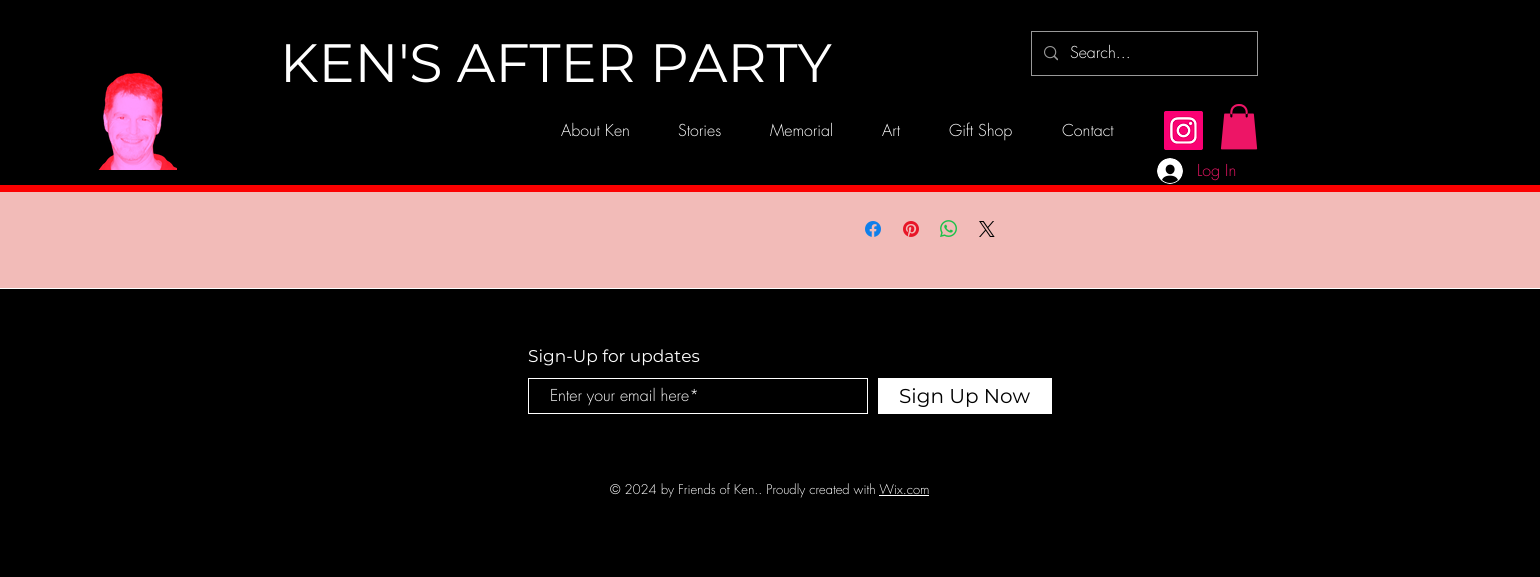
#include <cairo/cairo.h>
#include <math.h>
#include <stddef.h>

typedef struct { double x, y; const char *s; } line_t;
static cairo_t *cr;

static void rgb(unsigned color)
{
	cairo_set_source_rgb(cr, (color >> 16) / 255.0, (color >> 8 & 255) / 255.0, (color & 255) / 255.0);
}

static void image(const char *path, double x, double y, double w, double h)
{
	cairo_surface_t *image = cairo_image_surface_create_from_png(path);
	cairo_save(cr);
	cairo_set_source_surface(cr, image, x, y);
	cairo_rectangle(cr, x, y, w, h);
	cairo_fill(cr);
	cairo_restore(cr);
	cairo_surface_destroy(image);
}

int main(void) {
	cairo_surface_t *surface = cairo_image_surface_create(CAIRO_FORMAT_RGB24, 1540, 577);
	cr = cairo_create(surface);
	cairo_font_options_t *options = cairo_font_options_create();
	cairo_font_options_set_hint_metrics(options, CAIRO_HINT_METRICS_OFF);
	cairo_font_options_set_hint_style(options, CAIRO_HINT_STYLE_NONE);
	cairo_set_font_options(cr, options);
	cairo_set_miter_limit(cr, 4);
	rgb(0xf2bbb8);
	cairo_paint(cr);
	rgb(0x000000);
	cairo_rectangle(cr, 0, 0, 1540, 185);
	cairo_fill(cr);
	image("img/1.png", 98, 72, 79, 98);
	rgb(0xfc0000);
	cairo_rectangle(cr, 0, 185, 1540, 7);
	cairo_fill(cr);
	cairo_rectangle(cr, 1031.5, 31.5, 226, 44);
	rgb(0x999999);
	cairo_set_line_width(cr, 1);
	cairo_stroke(cr);
	image("img/2.png", 1044, 46, 14, 15);
	image("img/3.png", 1164, 111, 39, 39);
	image("img/4.png", 1220, 104, 38, 46);
	image("img/5.png", 1157, 158, 26, 26);
	image("img/6.png", 865, 221, 16, 16);
	image("img/7.png", 903, 221, 16, 16);
	image("img/8.png", 940, 220, 17, 17);
	image("img/9.png", 979, 221, 16, 16);
	rgb(0x000000);
	cairo_rectangle(cr, 0, 289, 1540, 288);
	cairo_fill(cr);
	rgb(0xffffff);
	cairo_rectangle(cr, 0, 288, 1540, 1);
	cairo_fill(cr);
	cairo_rectangle(cr, 528.5, 378.5, 339, 35);
	cairo_stroke(cr);
	cairo_rectangle(cr, 878, 378, 174, 36);
	cairo_fill(cr);
	cairo_rectangle(cr, 879, 495, 50, 1);
	cairo_fill(cr);
	cairo_select_font_face(cr, "Montserrat", CAIRO_FONT_SLANT_NORMAL, CAIRO_FONT_WEIGHT_NORMAL);
	cairo_set_font_size(cr, 54);
	cairo_move_to(cr, 280, 82);
	cairo_show_text(cr, "KEN'S AFTER PARTY");
	cairo_select_font_face(cr, "futura Light", CAIRO_FONT_SLANT_NORMAL, CAIRO_FONT_WEIGHT_NORMAL);
	cairo_set_font_size(cr, 16);
	{
		static const line_t items[] = {
			{1070, 58, "Search..."},
			{561, 136, "About Ken"},
			{678, 136, "Stories"},
			{770, 136, "Memorial"},
			{882, 136, "Art"},
			{949, 136, "Gift Shop"},
			{1062, 136, "Contact"},
		};
		for (size_t i = 0; i < sizeof items / sizeof *items; i++) {
			cairo_move_to(cr, items[i].x, items[i].y);
			cairo_show_text(cr, items[i].s);
		}
	}
	rgb(0xed1566);
	cairo_move_to(cr, 1197, 176);
	cairo_show_text(cr, "Log In");
	cairo_select_font_face(cr, "Montserrat", CAIRO_FONT_SLANT_NORMAL, CAIRO_FONT_WEIGHT_NORMAL);
	cairo_set_font_size(cr, 17);
	rgb(0xffffff);
	cairo_move_to(cr, 528, 362);
	cairo_show_text(cr, "Sign-Up for updates");
	cairo_select_font_face(cr, "futura Light", CAIRO_FONT_SLANT_NORMAL, CAIRO_FONT_WEIGHT_NORMAL);
	cairo_set_font_size(cr, 16);
	cairo_move_to(cr, 550, 401);
	cairo_show_text(cr, "Enter your email here*");
	cairo_select_font_face(cr, "Montserrat", CAIRO_FONT_SLANT_NORMAL, CAIRO_FONT_WEIGHT_NORMAL);
	cairo_set_font_size(cr, 20);
	rgb(0x000000);
	cairo_move_to(cr, 899, 403);
	cairo_show_text(cr, "Sign Up Now");
	cairo_select_font_face(cr, "futura Light", CAIRO_FONT_SLANT_NORMAL, CAIRO_FONT_WEIGHT_NORMAL);
	cairo_set_font_size(cr, 13);
	rgb(0xffffff);
	cairo_move_to(cr, 610, 494);
	cairo_show_text(cr, "© 2024 by Friends of Ken.. Proudly created with Wix.com");
	cairo_surface_write_to_png(surface, "page.png");
	cairo_font_options_destroy(options);
	cairo_destroy(cr);
	cairo_surface_destroy(surface);
	return 0;
}
